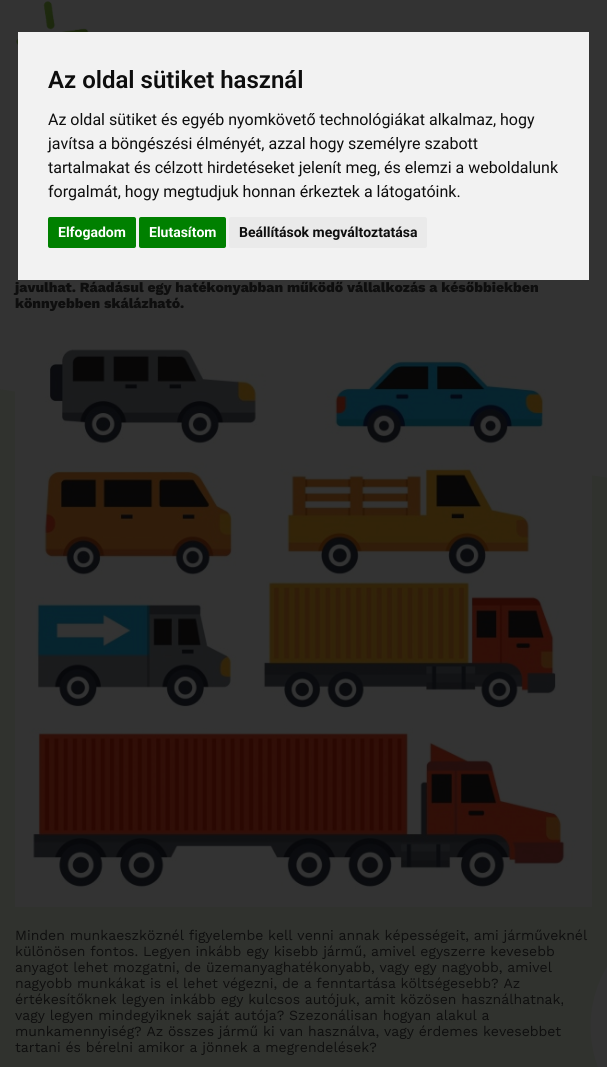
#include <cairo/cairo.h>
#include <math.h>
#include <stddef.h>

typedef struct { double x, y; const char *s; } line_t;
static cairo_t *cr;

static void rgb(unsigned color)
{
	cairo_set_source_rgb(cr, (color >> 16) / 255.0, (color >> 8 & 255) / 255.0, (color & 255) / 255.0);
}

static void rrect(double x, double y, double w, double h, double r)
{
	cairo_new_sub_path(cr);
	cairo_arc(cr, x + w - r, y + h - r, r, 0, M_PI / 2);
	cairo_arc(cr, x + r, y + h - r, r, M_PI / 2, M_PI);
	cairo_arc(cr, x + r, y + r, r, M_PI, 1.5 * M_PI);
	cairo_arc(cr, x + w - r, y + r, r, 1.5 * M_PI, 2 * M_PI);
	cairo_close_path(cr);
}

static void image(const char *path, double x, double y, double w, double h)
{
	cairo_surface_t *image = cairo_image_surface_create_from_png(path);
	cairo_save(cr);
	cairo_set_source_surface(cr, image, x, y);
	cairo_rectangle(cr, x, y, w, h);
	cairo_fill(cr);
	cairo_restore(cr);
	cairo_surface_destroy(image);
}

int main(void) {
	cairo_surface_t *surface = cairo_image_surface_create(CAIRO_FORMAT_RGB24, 607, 1067);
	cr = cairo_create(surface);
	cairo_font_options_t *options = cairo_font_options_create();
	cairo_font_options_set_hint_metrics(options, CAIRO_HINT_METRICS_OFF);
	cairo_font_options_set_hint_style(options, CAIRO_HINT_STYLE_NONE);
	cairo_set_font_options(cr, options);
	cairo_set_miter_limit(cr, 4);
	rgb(0x333333);
	cairo_paint(cr);
	image("img/1.png", 16, 1, 73, 44);
	rgb(0xf2f2f2);
	cairo_rectangle(cr, 18, 32, 571, 248);
	cairo_fill(cr);
	rgb(0x008000);
	rrect(48, 217, 88, 31, 2);
	cairo_fill(cr);
	rrect(139, 217, 87, 31, 2);
	cairo_fill(cr);
	rgb(0xeaeaea);
	rrect(229, 217, 198, 31, 2);
	cairo_fill(cr);
	image("img/2.png", 0, 389, 607, 678);
	image("img/3.png", 15, 349, 577, 558);
	cairo_select_font_face(cr, "Roboto SemiBold", CAIRO_FONT_SLANT_NORMAL, CAIRO_FONT_WEIGHT_NORMAL);
	cairo_set_font_size(cr, 24);
	rgb(0x0e0e0e);
	cairo_move_to(cr, 48, 88);
	cairo_show_text(cr, "Az oldal sütiket használ");
	cairo_select_font_face(cr, "Roboto", CAIRO_FONT_SLANT_NORMAL, CAIRO_FONT_WEIGHT_NORMAL);
	cairo_set_font_size(cr, 16);
	{
		static const line_t items[] = {
			{48, 125, "Az oldal sütiket és egyéb nyomkövető technológiákat alkalmaz, hogy"},
			{48, 149, "javítsa a böngészési élményét, azzal hogy személyre szabott"},
			{48, 173, "tartalmakat és célzott hirdetéseket jelenít meg, és elemzi a weboldalunk"},
			{48, 197, "forgalmát, hogy megtudjuk honnan érkeztek a látogatóink."},
		};
		for (size_t i = 0; i < sizeof items / sizeof *items; i++) {
			cairo_move_to(cr, items[i].x, items[i].y);
			cairo_show_text(cr, items[i].s);
		}
	}
	cairo_select_font_face(cr, "Roboto", CAIRO_FONT_SLANT_NORMAL, CAIRO_FONT_WEIGHT_BOLD);
	cairo_set_font_size(cr, 14);
	rgb(0xffffff);
	cairo_move_to(cr, 58, 237);
	cairo_show_text(cr, "Elfogadom");
	cairo_move_to(cr, 149, 237);
	cairo_show_text(cr, "Elutasítom");
	rgb(0x0e0e0e);
	cairo_move_to(cr, 239, 237);
	cairo_show_text(cr, "Beállítások megváltoztatása");
	cairo_select_font_face(cr, "Work Sans ExtraBold", CAIRO_FONT_SLANT_NORMAL, CAIRO_FONT_WEIGHT_NORMAL);
	cairo_move_to(cr, 15, 292);
	cairo_show_text(cr, "javulhat. Ráadásul egy hatékonyabban működő vállalkozás a későbbiekben");
	cairo_move_to(cr, 15, 308);
	cairo_show_text(cr, "könnyebben skálázható.");
	cairo_select_font_face(cr, "Work Sans", CAIRO_FONT_SLANT_NORMAL, CAIRO_FONT_WEIGHT_NORMAL);
	{
		static const line_t items[] = {
			{15, 940, "Minden munkaeszköznél figyelembe kell venni annak képességeit, ami járműveknél"},
			{15, 956, "különösen fontos. Legyen inkább egy kisebb jármű, amivel egyszerre kevesebb"},
			{15, 972, "anyagot lehet mozgatni, de üzemanyaghatékonyabb, vagy egy nagyobb, amivel"},
			{15, 988, "nagyobb munkákat is el lehet végezni, de a fenntartása költségesebb? Az"},
			{15, 1004, "értékesítőknek legyen inkább egy kulcsos autójuk, amit közösen használhatnak,"},
			{15, 1020, "vagy legyen mindegyiknek saját autója? Szezonálisan hogyan alakul a"},
			{15, 1036, "munkamennyiség? Az összes jármű ki van használva, vagy érdemes kevesebbet"},
			{15, 1052, "tartani és bérelni amikor a jönnek a megrendelések?"},
		};
		for (size_t i = 0; i < sizeof items / sizeof *items; i++) {
			cairo_move_to(cr, items[i].x, items[i].y);
			cairo_show_text(cr, items[i].s);
		}
	}
	cairo_surface_write_to_png(surface, "page.png");
	cairo_font_options_destroy(options);
	cairo_destroy(cr);
	cairo_surface_destroy(surface);
	return 0;
}
